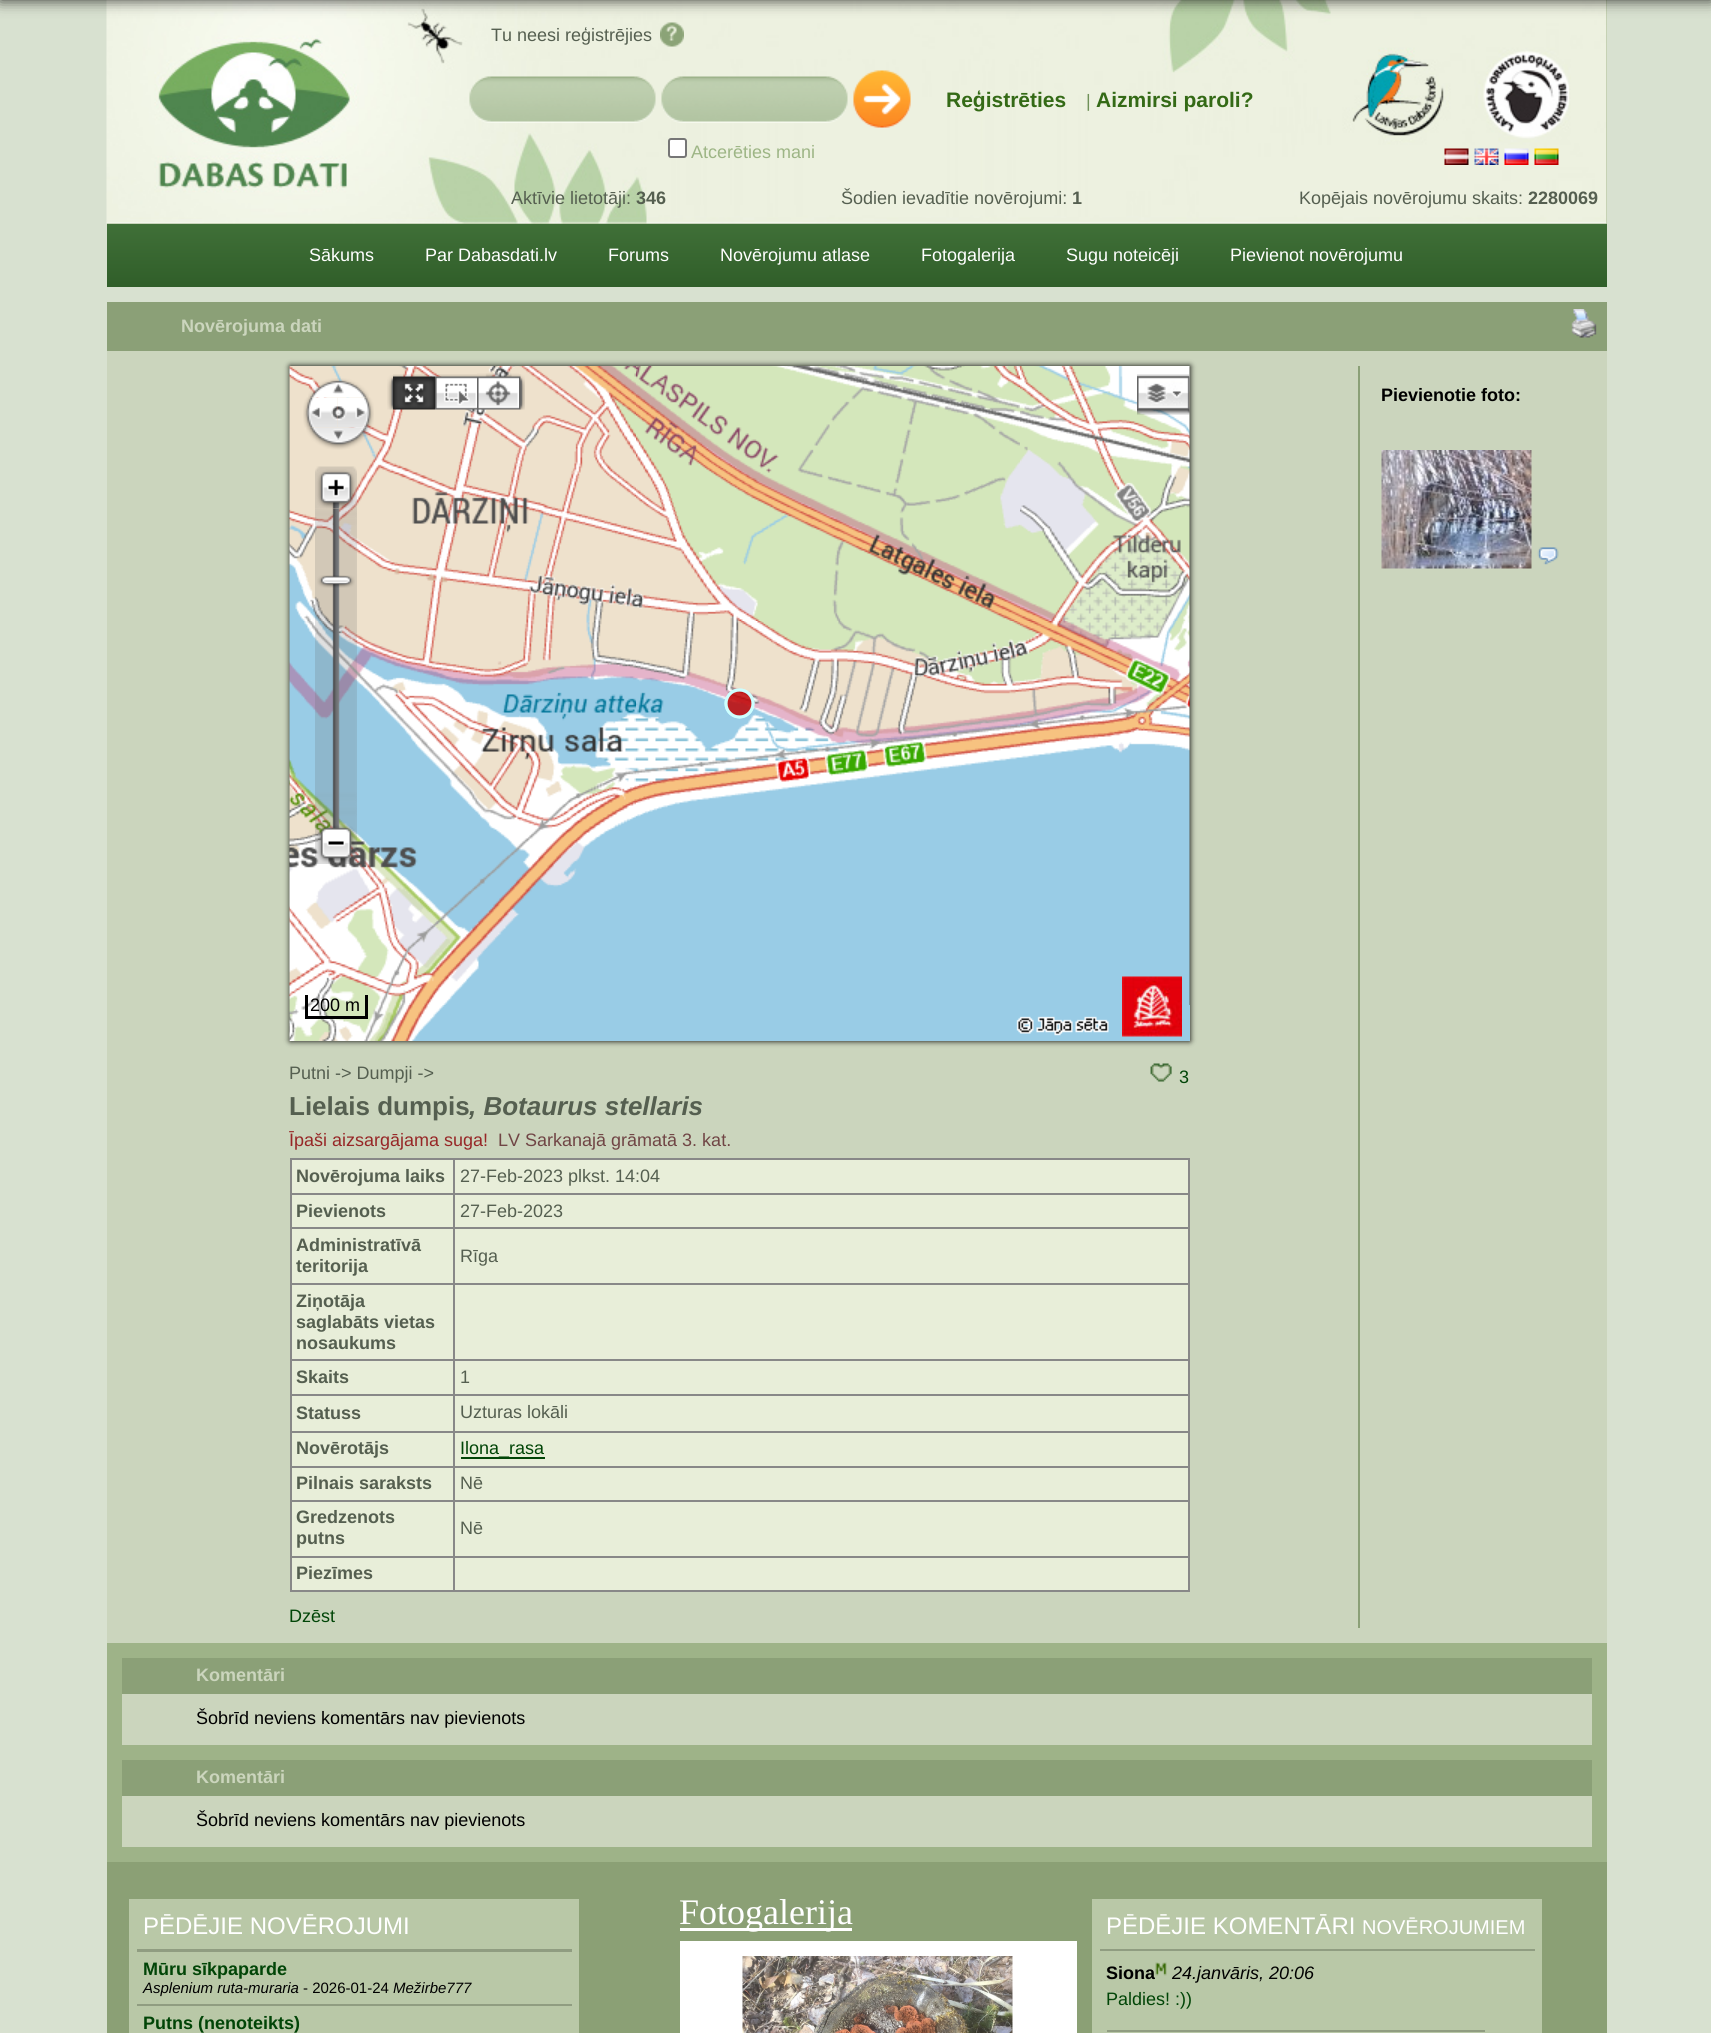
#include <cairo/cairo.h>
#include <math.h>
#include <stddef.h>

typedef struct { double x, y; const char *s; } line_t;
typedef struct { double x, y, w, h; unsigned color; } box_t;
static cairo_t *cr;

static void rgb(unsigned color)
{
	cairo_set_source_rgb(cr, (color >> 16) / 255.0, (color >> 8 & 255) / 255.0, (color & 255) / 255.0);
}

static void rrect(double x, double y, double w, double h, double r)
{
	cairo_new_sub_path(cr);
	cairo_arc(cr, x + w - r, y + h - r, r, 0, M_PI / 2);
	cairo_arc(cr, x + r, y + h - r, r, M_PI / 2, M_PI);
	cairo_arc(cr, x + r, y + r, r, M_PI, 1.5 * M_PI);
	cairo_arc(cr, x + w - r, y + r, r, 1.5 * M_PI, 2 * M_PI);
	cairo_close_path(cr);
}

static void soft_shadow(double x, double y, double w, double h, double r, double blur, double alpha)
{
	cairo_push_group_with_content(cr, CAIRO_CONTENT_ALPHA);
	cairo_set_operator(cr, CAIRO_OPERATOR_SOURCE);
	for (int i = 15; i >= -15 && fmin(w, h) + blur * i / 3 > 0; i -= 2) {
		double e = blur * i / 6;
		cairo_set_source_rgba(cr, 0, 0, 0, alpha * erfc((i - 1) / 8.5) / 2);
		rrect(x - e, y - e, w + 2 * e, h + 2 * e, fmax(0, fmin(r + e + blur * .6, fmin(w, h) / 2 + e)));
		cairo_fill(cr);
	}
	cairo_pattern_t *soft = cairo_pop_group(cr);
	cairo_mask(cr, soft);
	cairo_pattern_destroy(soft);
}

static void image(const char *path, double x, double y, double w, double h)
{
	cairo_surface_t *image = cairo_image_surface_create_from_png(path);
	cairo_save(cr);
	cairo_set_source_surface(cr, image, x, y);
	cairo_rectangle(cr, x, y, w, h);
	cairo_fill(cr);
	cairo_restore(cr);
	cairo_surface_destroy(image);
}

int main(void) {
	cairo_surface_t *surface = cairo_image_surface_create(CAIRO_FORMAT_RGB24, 1711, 2033);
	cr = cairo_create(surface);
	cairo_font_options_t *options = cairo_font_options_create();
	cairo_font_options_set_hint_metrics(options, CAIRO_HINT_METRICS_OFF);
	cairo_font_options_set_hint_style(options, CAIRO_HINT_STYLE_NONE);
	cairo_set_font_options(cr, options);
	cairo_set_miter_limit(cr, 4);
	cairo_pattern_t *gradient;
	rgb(0xd8e1d0);
	cairo_paint(cr);
	rgb(0x9eb388);
	cairo_rectangle(cr, 107, 0, 1500, 224);
	cairo_fill(cr);
	image("img/1.png", 106, 0, 1501, 224);
	image("img/2.png", 660, 22, 24, 25);
	rgb(0x000000);
	soft_shadow(0, -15, 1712, 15, 0, 7.5, 0.8);
	image("img/3.png", 469, 76, 187, 47);
	image("img/4.png", 661, 76, 187, 47);
	image("img/5.png", 853, 70, 58, 58);
	rgb(0xffffff);
	rrect(669, 139, 17, 18, 2);
	cairo_fill_preserve(cr);
	rgb(0x767676);
	cairo_stroke(cr);
	image("img/6.png", 1444, 148, 25, 17);
	image("img/7.png", 1474, 148, 25, 17);
	image("img/8.png", 1504, 148, 25, 17);
	image("img/9.png", 1534, 148, 25, 17);
	gradient = cairo_pattern_create_linear(857, 223, 857, 287);
	cairo_pattern_add_color_stop_rgba(gradient, 0, 0.251, 0.439, 0.22, 1);
	cairo_pattern_add_color_stop_rgba(gradient, 1, 0.188, 0.369, 0.161, 1);
	cairo_set_source(cr, gradient);
	cairo_pattern_destroy(gradient);
	cairo_rectangle(cr, 107, 224, 1500, 63);
	cairo_fill(cr);
	rgb(0x9eb388);
	cairo_rectangle(cr, 107, 1643, 1500, 219);
	cairo_fill(cr);
	rgb(0x8ba077);
	cairo_rectangle(cr, 107, 302, 1500, 49);
	cairo_fill(cr);
	image("img/10.png", 1571, 309, 26, 29);
	rgb(0xcbd5bd);
	cairo_rectangle(cr, 107, 351, 1500, 1292);
	cairo_fill(cr);
	image("img/11.png", 1381, 450, 151, 119);
	image("img/12.png", 1537, 547, 22, 18);
	rgb(0x8ba077);
	cairo_rectangle(cr, 1358, 366, 2, 1262);
	cairo_fill(cr);
	rgb(0x000000);
	soft_shadow(290, 366, 900, 675, 0, 3, 1);
	image("img/13.png", 289, 366, 347, 255);
	image("img/14.png", 636, 366, 384, 255);
	image("img/15.png", 1020, 366, 170, 255);
	image("img/16.png", 289, 621, 347, 384);
	image("img/17.png", 636, 621, 384, 384);
	image("img/18.png", 1020, 621, 170, 384);
	image("img/19.png", 289, 1005, 347, 36);
	rgb(0x99cce6);
	cairo_rectangle(cr, 636, 1005, 554, 36);
	cairo_fill(cr);
	cairo_set_source_rgba(cr, 0.753, 0, 0, 0.6);
	cairo_arc(cr, 739.5, 703.5, 13.5, 0, 2 * M_PI);
	cairo_fill_preserve(cr);
	rgb(0xcdffff);
	cairo_set_line_width(cr, 3);
	cairo_stroke(cr);
	image("img/20.png", 387, 375, 6, 35);
	image("img/21.png", 393, 374, 42, 36);
	image("img/22.png", 435, 374, 42, 36);
	image("img/23.png", 477, 373, 42, 37);
	image("img/24.png", 519, 374, 6, 36);
	image("img/25.png", 1137, 374, 53, 41);
	image("img/26.png", 308, 378, 61, 20);
	image("img/27.png", 303, 397, 35, 31);
	image("img/28.png", 337, 397, 37, 31);
	image("img/29.png", 306, 427, 65, 23);
	image("img/30.png", 315, 466, 42, 43);
	image("img/31.png", 315, 508, 42, 314);
	image("img/32.png", 317, 575, 38, 13);
	image("img/33.png", 315, 822, 42, 42);
	image("img/34.png", 1137, 374, 53, 41);
	{
		static const box_t items[] = {
			{365, 995, 3, 24, 0x000000},
			{305, 1016, 63, 3, 0x000000},
			{305, 995, 3, 24, 0x000000},
		};
		for (size_t i = 0; i < sizeof items / sizeof *items; i++) {
			rgb(items[i].color);
			cairo_rectangle(cr, items[i].x, items[i].y, items[i].w, items[i].h);
			cairo_fill(cr);
		}
	}
	image("img/35.png", 1016, 1016, 93, 20);
	image("img/36.png", 1122, 976, 60, 61);
	image("img/37.png", 1150, 1063, 22, 19);
	{
		static const box_t items[] = {
			{292, 1160, 161, 33, 0xe8eed9},
			{453, 1158, 737, 2, 0x888888},
			{453, 1193, 737, 2, 0x888888},
			{453, 1227, 737, 2, 0x888888},
			{453, 1283, 737, 2, 0x888888},
			{453, 1359, 737, 2, 0x888888},
			{453, 1394, 737, 2, 0x888888},
			{453, 1431, 737, 2, 0x888888},
			{453, 1466, 737, 2, 0x888888},
			{453, 1500, 737, 2, 0x888888},
			{453, 1556, 737, 2, 0x888888},
			{1188, 1556, 2, 36, 0x888888},
			{453, 1590, 737, 2, 0x888888},
			{453, 1556, 2, 36, 0x888888},
			{290, 1556, 165, 2, 0x888888},
			{453, 1500, 2, 57, 0x888888},
			{290, 1500, 165, 2, 0x888888},
			{453, 1466, 2, 36, 0x888888},
			{290, 1466, 165, 2, 0x888888},
			{453, 1431, 2, 36, 0x888888},
			{290, 1431, 165, 2, 0x888888},
			{453, 1394, 2, 39, 0x888888},
			{290, 1394, 165, 2, 0x888888},
			{453, 1359, 2, 36, 0x888888},
			{290, 1359, 165, 2, 0x888888},
			{453, 1283, 2, 78, 0x888888},
			{290, 1283, 165, 2, 0x888888},
			{453, 1227, 2, 57, 0x888888},
			{290, 1227, 165, 2, 0x888888},
			{453, 1193, 2, 36, 0x888888},
			{290, 1193, 165, 2, 0x888888},
			{453, 1158, 2, 36, 0x888888},
			{290, 1158, 165, 2, 0x888888},
			{290, 1590, 165, 2, 0x888888},
			{290, 1556, 2, 36, 0x888888},
			{290, 1500, 2, 57, 0x888888},
			{290, 1466, 2, 36, 0x888888},
			{290, 1431, 2, 36, 0x888888},
			{290, 1394, 2, 39, 0x888888},
			{290, 1359, 2, 36, 0x888888},
			{290, 1283, 2, 78, 0x888888},
			{290, 1227, 2, 57, 0x888888},
			{290, 1193, 2, 36, 0x888888},
			{290, 1158, 2, 36, 0x888888},
			{455, 1160, 733, 33, 0xe8eed9},
			{1188, 1500, 2, 57, 0x888888},
			{1188, 1466, 2, 36, 0x888888},
			{1188, 1431, 2, 36, 0x888888},
			{1188, 1394, 2, 39, 0x888888},
			{1188, 1359, 2, 36, 0x888888},
			{1188, 1283, 2, 78, 0x888888},
			{1188, 1227, 2, 57, 0x888888},
			{1188, 1193, 2, 36, 0x888888},
			{1188, 1158, 2, 36, 0x888888},
			{292, 1195, 161, 32, 0xe8eed9},
			{455, 1195, 733, 32, 0xe8eed9},
			{292, 1229, 161, 54, 0xe8eed9},
			{455, 1229, 733, 54, 0xe8eed9},
			{292, 1285, 161, 74, 0xe8eed9},
			{455, 1285, 733, 74, 0xe8eed9},
			{292, 1361, 161, 33, 0xe8eed9},
			{455, 1361, 733, 33, 0xe8eed9},
			{292, 1396, 161, 35, 0xe8eed9},
			{455, 1396, 733, 35, 0xe8eed9},
			{292, 1433, 161, 33, 0xe8eed9},
			{455, 1433, 733, 33, 0xe8eed9},
			{461, 1457, 84, 2, 0x014507},
			{292, 1468, 161, 32, 0xe8eed9},
			{455, 1468, 733, 32, 0xe8eed9},
			{292, 1502, 161, 54, 0xe8eed9},
			{455, 1502, 733, 54, 0xe8eed9},
			{292, 1558, 161, 32, 0xe8eed9},
			{455, 1558, 733, 32, 0xe8eed9},
			{122, 1658, 1470, 36, 0x8ba077},
			{122, 1694, 1470, 51, 0xcbd5bd},
			{122, 1760, 1470, 36, 0x8ba077},
			{122, 1796, 1470, 51, 0xcbd5bd},
			{107, 1862, 1500, 171, 0x8ba075},
			{129, 1899, 450, 134, 0xb9c8a7},
			{137, 1949, 435, 3, 0x909d81},
			{137, 2004, 435, 2, 0x909d81},
			{680, 1928, 172, 3, 0xffffff},
			{680, 1941, 397, 92, 0xffffff},
		};
		for (size_t i = 0; i < sizeof items / sizeof *items; i++) {
			rgb(items[i].color);
			cairo_rectangle(cr, items[i].x, items[i].y, items[i].w, items[i].h);
			cairo_fill(cr);
		}
	}
	image("img/38.png", 742, 1956, 271, 77);
	{
		static const box_t items[] = {
			{1092, 1899, 450, 134, 0xb9c8a7},
			{1100, 1949, 435, 2, 0x909d81},
			{1107, 2030, 378, 2, 0x909d81},
		};
		for (size_t i = 0; i < sizeof items / sizeof *items; i++) {
			rgb(items[i].color);
			cairo_rectangle(cr, items[i].x, items[i].y, items[i].w, items[i].h);
			cairo_fill(cr);
		}
	}
	cairo_select_font_face(cr, "Liberation Sans", CAIRO_FONT_SLANT_NORMAL, CAIRO_FONT_WEIGHT_NORMAL);
	cairo_set_font_size(cr, 18);
	rgb(0x555f50);
	cairo_move_to(cr, 491, 41);
	cairo_show_text(cr, "Tu neesi reģistrējies");
	cairo_select_font_face(cr, "Liberation Sans", CAIRO_FONT_SLANT_NORMAL, CAIRO_FONT_WEIGHT_BOLD);
	cairo_set_font_size(cr, 21);
	rgb(0x346a16);
	cairo_move_to(cr, 946, 107);
	cairo_show_text(cr, "Reģistrēties");
	cairo_select_font_face(cr, "Liberation Sans", CAIRO_FONT_SLANT_NORMAL, CAIRO_FONT_WEIGHT_NORMAL);
	cairo_set_font_size(cr, 18);
	rgb(0x709159);
	cairo_move_to(cr, 1086, 107);
	cairo_show_text(cr, "|");
	cairo_select_font_face(cr, "Liberation Sans", CAIRO_FONT_SLANT_NORMAL, CAIRO_FONT_WEIGHT_BOLD);
	cairo_set_font_size(cr, 21);
	rgb(0x346a16);
	cairo_move_to(cr, 1096, 107);
	cairo_show_text(cr, "Aizmirsi paroli?");
	cairo_select_font_face(cr, "Liberation Sans", CAIRO_FONT_SLANT_NORMAL, CAIRO_FONT_WEIGHT_NORMAL);
	cairo_set_font_size(cr, 18);
	rgb(0x9db585);
	cairo_move_to(cr, 691, 158);
	cairo_show_text(cr, "Atcerēties mani");
	rgb(0x555f50);
	cairo_move_to(cr, 511, 204);
	cairo_show_text(cr, "Aktīvie lietotāji:");
	cairo_select_font_face(cr, "Liberation Sans", CAIRO_FONT_SLANT_NORMAL, CAIRO_FONT_WEIGHT_BOLD);
	cairo_move_to(cr, 636, 204);
	cairo_show_text(cr, "346");
	cairo_select_font_face(cr, "Liberation Sans", CAIRO_FONT_SLANT_NORMAL, CAIRO_FONT_WEIGHT_NORMAL);
	cairo_move_to(cr, 841, 204);
	cairo_show_text(cr, "Šodien ievadītie novērojumi:");
	cairo_select_font_face(cr, "Liberation Sans", CAIRO_FONT_SLANT_NORMAL, CAIRO_FONT_WEIGHT_BOLD);
	cairo_move_to(cr, 1072, 204);
	cairo_show_text(cr, "1");
	cairo_select_font_face(cr, "Liberation Sans", CAIRO_FONT_SLANT_NORMAL, CAIRO_FONT_WEIGHT_NORMAL);
	cairo_move_to(cr, 1299, 204);
	cairo_show_text(cr, "Kopējais novērojumu skaits:");
	cairo_select_font_face(cr, "Liberation Sans", CAIRO_FONT_SLANT_NORMAL, CAIRO_FONT_WEIGHT_BOLD);
	cairo_move_to(cr, 1528, 204);
	cairo_show_text(cr, "2280069");
	cairo_select_font_face(cr, "Liberation Sans", CAIRO_FONT_SLANT_NORMAL, CAIRO_FONT_WEIGHT_NORMAL);
	rgb(0xffffff);
	{
		static const line_t items[] = {
			{309, 261, "Sākums"},
			{425, 261, "Par Dabasdati.lv"},
			{608, 261, "Forums"},
			{720, 261, "Novērojumu atlase"},
			{921, 261, "Fotogalerija"},
			{1066, 261, "Sugu noteicēji"},
			{1230, 261, "Pievienot novērojumu"},
		};
		for (size_t i = 0; i < sizeof items / sizeof *items; i++) {
			cairo_move_to(cr, items[i].x, items[i].y);
			cairo_show_text(cr, items[i].s);
		}
	}
	cairo_select_font_face(cr, "Liberation Sans", CAIRO_FONT_SLANT_NORMAL, CAIRO_FONT_WEIGHT_BOLD);
	rgb(0xcbd5bd);
	cairo_move_to(cr, 181, 332);
	cairo_show_text(cr, "Novērojuma dati");
	rgb(0x000000);
	cairo_move_to(cr, 1381, 401);
	cairo_show_text(cr, "Pievienotie foto:");
	cairo_select_font_face(cr, "Liberation Sans", CAIRO_FONT_SLANT_NORMAL, CAIRO_FONT_WEIGHT_NORMAL);
	cairo_move_to(cr, 310, 1011);
	cairo_show_text(cr, "200 m");
	rgb(0x555f50);
	cairo_move_to(cr, 289, 1079);
	cairo_show_text(cr, "Putni -> Dumpji ->");
	rgb(0x014507);
	cairo_move_to(cr, 1179, 1083);
	cairo_show_text(cr, "3");
	cairo_select_font_face(cr, "Liberation Sans", CAIRO_FONT_SLANT_NORMAL, CAIRO_FONT_WEIGHT_BOLD);
	cairo_set_font_size(cr, 26);
	rgb(0x555f50);
	cairo_move_to(cr, 289, 1115);
	cairo_show_text(cr, "Lielais dumpis");
	cairo_select_font_face(cr, "Liberation Sans", CAIRO_FONT_SLANT_ITALIC, CAIRO_FONT_WEIGHT_BOLD);
	cairo_move_to(cr, 469, 1115);
	cairo_show_text(cr, ", Botaurus stellaris");
	cairo_select_font_face(cr, "Liberation Sans", CAIRO_FONT_SLANT_NORMAL, CAIRO_FONT_WEIGHT_NORMAL);
	cairo_set_font_size(cr, 18);
	rgb(0x972727);
	cairo_move_to(cr, 289, 1146);
	cairo_show_text(cr, "Īpaši aizsargājama suga!");
	rgb(0x704545);
	cairo_move_to(cr, 498, 1146);
	cairo_show_text(cr, "LV Sarkanajā grāmatā 3. kat.");
	cairo_select_font_face(cr, "Liberation Sans", CAIRO_FONT_SLANT_NORMAL, CAIRO_FONT_WEIGHT_BOLD);
	rgb(0x555f50);
	cairo_move_to(cr, 296, 1182);
	cairo_show_text(cr, "Novērojuma laiks");
	cairo_select_font_face(cr, "Liberation Sans", CAIRO_FONT_SLANT_NORMAL, CAIRO_FONT_WEIGHT_NORMAL);
	cairo_move_to(cr, 460, 1182);
	cairo_show_text(cr, "27-Feb-2023 plkst. 14:04");
	cairo_select_font_face(cr, "Liberation Sans", CAIRO_FONT_SLANT_NORMAL, CAIRO_FONT_WEIGHT_BOLD);
	cairo_move_to(cr, 296, 1217);
	cairo_show_text(cr, "Pievienots");
	cairo_select_font_face(cr, "Liberation Sans", CAIRO_FONT_SLANT_NORMAL, CAIRO_FONT_WEIGHT_NORMAL);
	cairo_move_to(cr, 460, 1217);
	cairo_show_text(cr, "27-Feb-2023");
	cairo_select_font_face(cr, "Liberation Sans", CAIRO_FONT_SLANT_NORMAL, CAIRO_FONT_WEIGHT_BOLD);
	cairo_move_to(cr, 296, 1251);
	cairo_show_text(cr, "Administratīvā");
	cairo_move_to(cr, 296, 1272);
	cairo_show_text(cr, "teritorija");
	cairo_select_font_face(cr, "Liberation Sans", CAIRO_FONT_SLANT_NORMAL, CAIRO_FONT_WEIGHT_NORMAL);
	cairo_move_to(cr, 460, 1262);
	cairo_show_text(cr, "Rīga");
	cairo_select_font_face(cr, "Liberation Sans", CAIRO_FONT_SLANT_NORMAL, CAIRO_FONT_WEIGHT_BOLD);
	{
		static const line_t items[] = {
			{296, 1307, "Ziņotāja"},
			{296, 1328, "saglabāts vietas"},
			{296, 1349, "nosaukums"},
			{296, 1383, "Skaits"},
		};
		for (size_t i = 0; i < sizeof items / sizeof *items; i++) {
			cairo_move_to(cr, items[i].x, items[i].y);
			cairo_show_text(cr, items[i].s);
		}
	}
	cairo_select_font_face(cr, "Liberation Sans", CAIRO_FONT_SLANT_NORMAL, CAIRO_FONT_WEIGHT_NORMAL);
	cairo_move_to(cr, 460, 1383);
	cairo_show_text(cr, "1");
	cairo_select_font_face(cr, "Liberation Sans", CAIRO_FONT_SLANT_NORMAL, CAIRO_FONT_WEIGHT_BOLD);
	cairo_move_to(cr, 296, 1419);
	cairo_show_text(cr, "Statuss");
	cairo_select_font_face(cr, "Liberation Sans", CAIRO_FONT_SLANT_NORMAL, CAIRO_FONT_WEIGHT_NORMAL);
	cairo_move_to(cr, 460, 1418);
	cairo_show_text(cr, "Uzturas lokāli");
	cairo_select_font_face(cr, "Liberation Sans", CAIRO_FONT_SLANT_NORMAL, CAIRO_FONT_WEIGHT_BOLD);
	cairo_move_to(cr, 296, 1454);
	cairo_show_text(cr, "Novērotājs");
	cairo_select_font_face(cr, "Liberation Sans", CAIRO_FONT_SLANT_NORMAL, CAIRO_FONT_WEIGHT_NORMAL);
	rgb(0x014507);
	cairo_move_to(cr, 460, 1454);
	cairo_show_text(cr, "Ilona_rasa");
	cairo_select_font_face(cr, "Liberation Sans", CAIRO_FONT_SLANT_NORMAL, CAIRO_FONT_WEIGHT_BOLD);
	rgb(0x555f50);
	cairo_move_to(cr, 296, 1489);
	cairo_show_text(cr, "Pilnais saraksts");
	cairo_select_font_face(cr, "Liberation Sans", CAIRO_FONT_SLANT_NORMAL, CAIRO_FONT_WEIGHT_NORMAL);
	cairo_move_to(cr, 460, 1489);
	cairo_show_text(cr, "Nē");
	cairo_select_font_face(cr, "Liberation Sans", CAIRO_FONT_SLANT_NORMAL, CAIRO_FONT_WEIGHT_BOLD);
	cairo_move_to(cr, 296, 1523);
	cairo_show_text(cr, "Gredzenots");
	cairo_move_to(cr, 296, 1544);
	cairo_show_text(cr, "putns");
	cairo_select_font_face(cr, "Liberation Sans", CAIRO_FONT_SLANT_NORMAL, CAIRO_FONT_WEIGHT_NORMAL);
	cairo_move_to(cr, 460, 1534);
	cairo_show_text(cr, "Nē");
	cairo_select_font_face(cr, "Liberation Sans", CAIRO_FONT_SLANT_NORMAL, CAIRO_FONT_WEIGHT_BOLD);
	cairo_move_to(cr, 296, 1579);
	cairo_show_text(cr, "Piezīmes");
	cairo_select_font_face(cr, "Liberation Sans", CAIRO_FONT_SLANT_NORMAL, CAIRO_FONT_WEIGHT_NORMAL);
	rgb(0x014507);
	cairo_move_to(cr, 289, 1622);
	cairo_show_text(cr, "Dzēst");
	cairo_select_font_face(cr, "Liberation Sans", CAIRO_FONT_SLANT_NORMAL, CAIRO_FONT_WEIGHT_BOLD);
	rgb(0xcbd5bd);
	cairo_move_to(cr, 196, 1681);
	cairo_show_text(cr, "Komentāri");
	cairo_select_font_face(cr, "Liberation Sans", CAIRO_FONT_SLANT_NORMAL, CAIRO_FONT_WEIGHT_NORMAL);
	rgb(0x000000);
	cairo_move_to(cr, 196, 1724);
	cairo_show_text(cr, "Šobrīd neviens komentārs nav pievienots");
	cairo_select_font_face(cr, "Liberation Sans", CAIRO_FONT_SLANT_NORMAL, CAIRO_FONT_WEIGHT_BOLD);
	rgb(0xcbd5bd);
	cairo_move_to(cr, 196, 1783);
	cairo_show_text(cr, "Komentāri");
	cairo_select_font_face(cr, "Liberation Sans", CAIRO_FONT_SLANT_NORMAL, CAIRO_FONT_WEIGHT_NORMAL);
	rgb(0x000000);
	cairo_move_to(cr, 196, 1826);
	cairo_show_text(cr, "Šobrīd neviens komentārs nav pievienots");
	cairo_set_font_size(cr, 24);
	rgb(0xffffff);
	cairo_move_to(cr, 143, 1934);
	cairo_show_text(cr, "PĒDĒJIE NOVĒROJUMI");
	cairo_select_font_face(cr, "Liberation Sans", CAIRO_FONT_SLANT_NORMAL, CAIRO_FONT_WEIGHT_BOLD);
	cairo_set_font_size(cr, 18);
	rgb(0x014507);
	cairo_move_to(cr, 143, 1975);
	cairo_show_text(cr, "Mūru sīkpaparde");
	cairo_select_font_face(cr, "Liberation Sans", CAIRO_FONT_SLANT_ITALIC, CAIRO_FONT_WEIGHT_NORMAL);
	cairo_set_font_size(cr, 15);
	rgb(0x000000);
	cairo_move_to(cr, 143, 1993);
	cairo_show_text(cr, "Asplenium ruta-muraria");
	cairo_select_font_face(cr, "Liberation Sans", CAIRO_FONT_SLANT_NORMAL, CAIRO_FONT_WEIGHT_NORMAL);
	cairo_move_to(cr, 303, 1993);
	cairo_show_text(cr, "- 2026-01-24");
	cairo_select_font_face(cr, "Liberation Sans", CAIRO_FONT_SLANT_ITALIC, CAIRO_FONT_WEIGHT_NORMAL);
	cairo_move_to(cr, 393, 1993);
	cairo_show_text(cr, "Mežirbe777");
	cairo_select_font_face(cr, "Liberation Sans", CAIRO_FONT_SLANT_NORMAL, CAIRO_FONT_WEIGHT_BOLD);
	cairo_set_font_size(cr, 18);
	rgb(0x014507);
	cairo_move_to(cr, 143, 2029);
	cairo_show_text(cr, "Putns (nenoteikts)");
	cairo_select_font_face(cr, "Liberation Serif", CAIRO_FONT_SLANT_NORMAL, CAIRO_FONT_WEIGHT_NORMAL);
	cairo_set_font_size(cr, 36);
	rgb(0xffffff);
	cairo_move_to(cr, 679, 1924);
	cairo_show_text(cr, "Fotogalerija");
	cairo_select_font_face(cr, "Liberation Sans", CAIRO_FONT_SLANT_NORMAL, CAIRO_FONT_WEIGHT_NORMAL);
	cairo_set_font_size(cr, 24);
	cairo_move_to(cr, 1106, 1934);
	cairo_show_text(cr, "PĒDĒJIE KOMENTĀRI");
	cairo_set_font_size(cr, 20);
	cairo_move_to(cr, 1362, 1934);
	cairo_show_text(cr, "NOVĒROJUMIEM");
	cairo_select_font_face(cr, "Liberation Sans", CAIRO_FONT_SLANT_NORMAL, CAIRO_FONT_WEIGHT_BOLD);
	cairo_set_font_size(cr, 18);
	rgb(0x000000);
	cairo_move_to(cr, 1106, 1979);
	cairo_show_text(cr, "Siona");
	image("img/39.png", 1155, 1962, 12, 17);
	cairo_select_font_face(cr, "Liberation Sans", CAIRO_FONT_SLANT_ITALIC, CAIRO_FONT_WEIGHT_NORMAL);
	cairo_move_to(cr, 1172, 1979);
	cairo_show_text(cr, "24.janvāris, 20:06");
	cairo_select_font_face(cr, "Liberation Sans", CAIRO_FONT_SLANT_NORMAL, CAIRO_FONT_WEIGHT_NORMAL);
	rgb(0x014507);
	cairo_move_to(cr, 1106, 2005);
	cairo_show_text(cr, "Paldies! :))");
	cairo_surface_write_to_png(surface, "page.png");
	cairo_font_options_destroy(options);
	cairo_destroy(cr);
	cairo_surface_destroy(surface);
	return 0;
}
